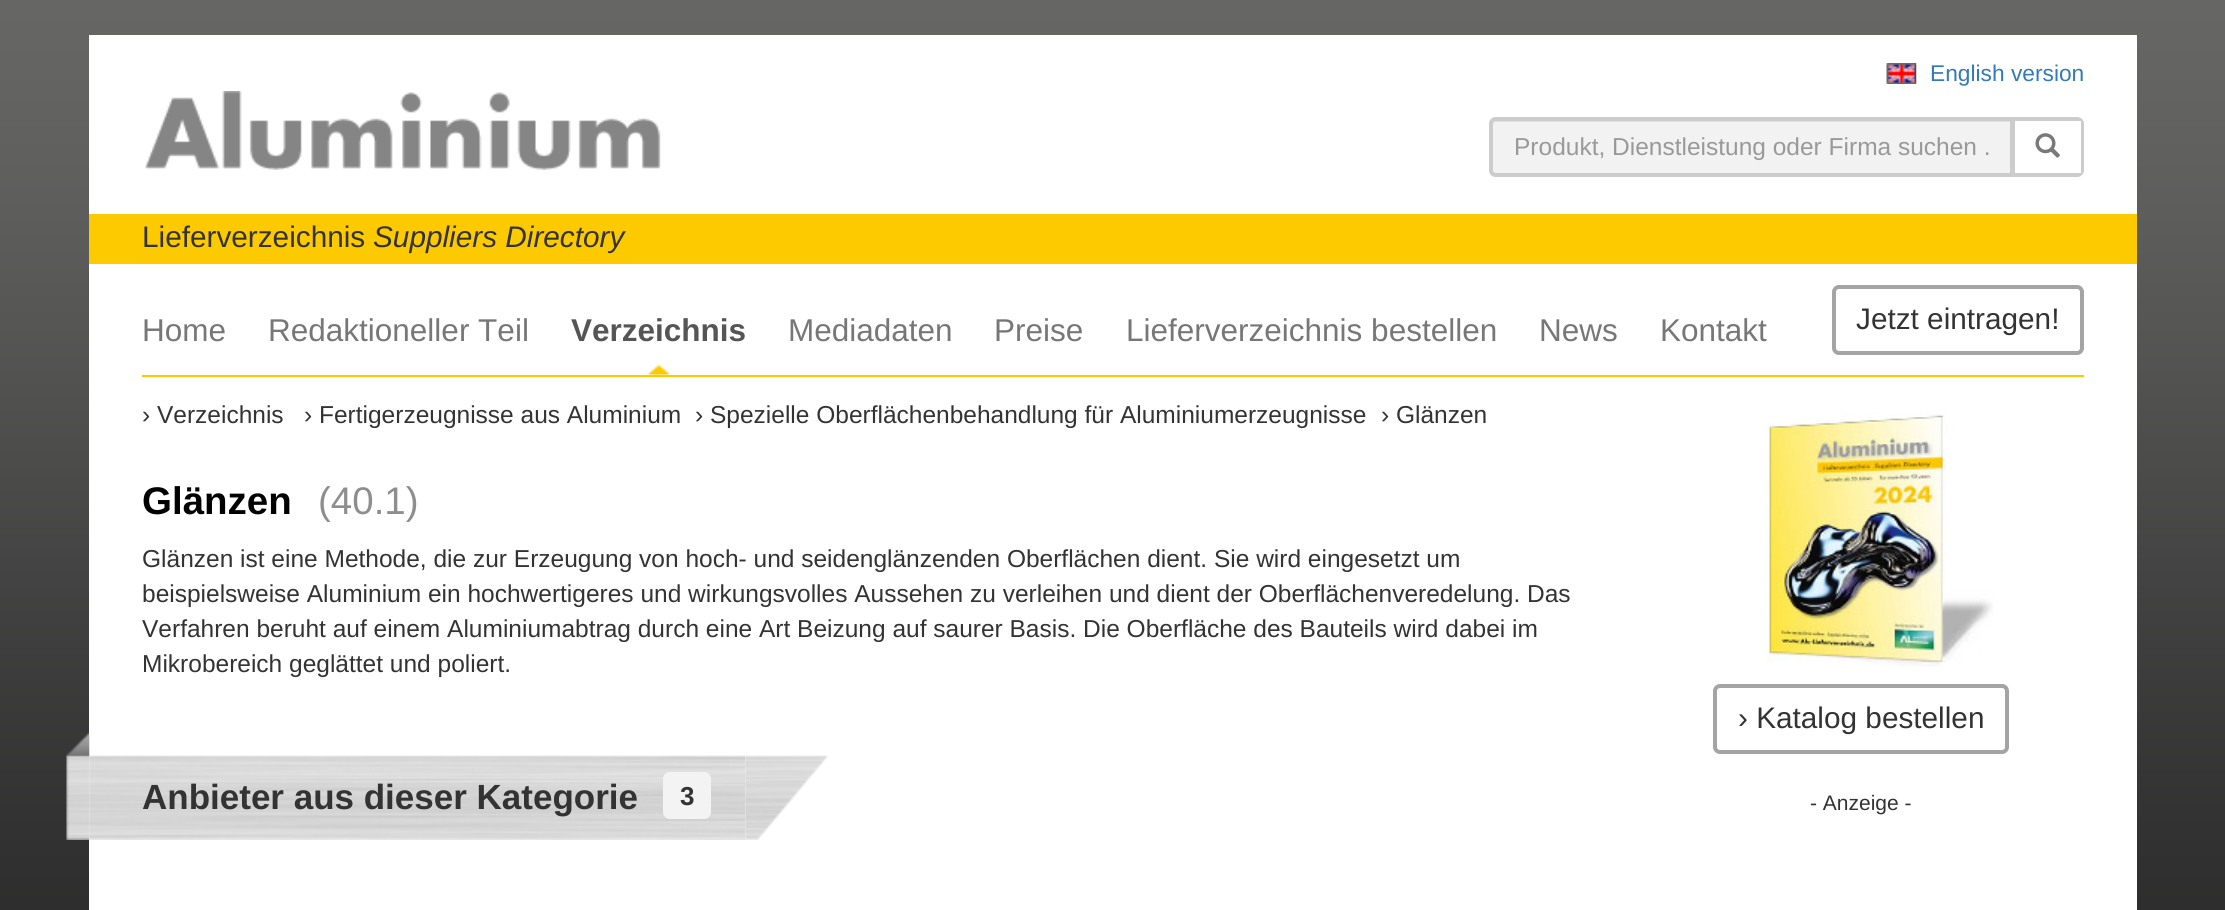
#include <cairo/cairo.h>
#include <math.h>
#include <stddef.h>

typedef struct { double x, y; const char *s; } line_t;
typedef struct { double x, y, w, h; unsigned color; } box_t;
static cairo_t *cr;

static void rgb(unsigned color)
{
	cairo_set_source_rgb(cr, (color >> 16) / 255.0, (color >> 8 & 255) / 255.0, (color & 255) / 255.0);
}

static void rrect(double x, double y, double w, double h, double r)
{
	cairo_new_sub_path(cr);
	cairo_arc(cr, x + w - r, y + h - r, r, 0, M_PI / 2);
	cairo_arc(cr, x + r, y + h - r, r, M_PI / 2, M_PI);
	cairo_arc(cr, x + r, y + r, r, M_PI, 1.5 * M_PI);
	cairo_arc(cr, x + w - r, y + r, r, 1.5 * M_PI, 2 * M_PI);
	cairo_close_path(cr);
}

static void image(const char *path, double x, double y, double w, double h)
{
	cairo_surface_t *image = cairo_image_surface_create_from_png(path);
	cairo_save(cr);
	cairo_set_source_surface(cr, image, x, y);
	cairo_rectangle(cr, x, y, w, h);
	cairo_fill(cr);
	cairo_restore(cr);
	cairo_surface_destroy(image);
}

int main(void) {
	cairo_surface_t *surface = cairo_image_surface_create(CAIRO_FORMAT_RGB24, 2225, 910);
	cr = cairo_create(surface);
	cairo_font_options_t *options = cairo_font_options_create();
	cairo_font_options_set_hint_metrics(options, CAIRO_HINT_METRICS_OFF);
	cairo_font_options_set_hint_style(options, CAIRO_HINT_STYLE_NONE);
	cairo_set_font_options(cr, options);
	cairo_set_miter_limit(cr, 4);
	rgb(0xffffff);
	cairo_paint(cr);
	image("img/1.png", 0, 0, 2225, 910);
	rgb(0xffffff);
	cairo_rectangle(cr, 89, 35, 2048, 179);
	cairo_fill(cr);
	image("img/2.png", 1886, 63, 31, 21);
	image("img/3.png", 145, 91, 516, 79);
	rgb(0xf2f2f2);
	cairo_new_path(cr);
	cairo_move_to(cr, 1496, 117);
	cairo_line_to(cr, 2014, 117);
	cairo_line_to(cr, 2014, 177);
	cairo_line_to(cr, 1496, 177);
	cairo_curve_to(cr, 1492, 177, 1489, 174, 1489, 170);
	cairo_line_to(cr, 1489, 124);
	cairo_curve_to(cr, 1489, 120, 1492, 117, 1496, 117);
	cairo_close_path(cr);
	cairo_fill(cr);
	rgb(0xe0e0e0);
	cairo_new_path(cr);
	cairo_move_to(cr, 1496, 122);
	cairo_line_to(cr, 2011, 122);
	cairo_line_to(cr, 2011, 121);
	cairo_line_to(cr, 1497, 121);
	cairo_curve_to(cr, 1494, 121, 1493, 123, 1493, 126);
	cairo_curve_to(cr, 1493, 124, 1494, 122, 1496, 122);
	cairo_close_path(cr);
	cairo_fill(cr);
	cairo_new_path(cr);
	cairo_move_to(cr, 1496, 119);
	cairo_line_to(cr, 2012, 119);
	cairo_line_to(cr, 2012, 175);
	cairo_line_to(cr, 1496, 175);
	cairo_curve_to(cr, 1493, 175, 1491, 173, 1491, 170);
	cairo_line_to(cr, 1491, 124);
	cairo_curve_to(cr, 1491, 121, 1493, 119, 1496, 119);
	cairo_close_path(cr);
	rgb(0xcccccc);
	cairo_set_line_width(cr, 4);
	cairo_stroke(cr);
	cairo_new_path(cr);
	cairo_move_to(cr, 2014, 118);
	cairo_line_to(cr, 2077, 118);
	cairo_curve_to(cr, 2080.5, 118, 2083, 120.5, 2083, 124);
	cairo_line_to(cr, 2083, 170);
	cairo_curve_to(cr, 2083, 173.5, 2080.5, 176, 2077, 176);
	cairo_line_to(cr, 2014, 176);
	cairo_close_path(cr);
	cairo_set_line_width(cr, 2);
	cairo_stroke(cr);
	{
		static const box_t items[] = {
			{2013, 119, 68, 2, 0xcccccc},
			{2081, 121, 1, 52, 0xcccccc},
			{2013, 173, 68, 2, 0xcccccc},
		};
		for (size_t i = 0; i < sizeof items / sizeof *items; i++) {
			rgb(items[i].color);
			cairo_rectangle(cr, items[i].x, items[i].y, items[i].w, items[i].h);
			cairo_fill(cr);
		}
	}
	image("img/4.png", 2035, 133, 25, 25);
	{
		static const box_t items[] = {
			{89, 214, 2048, 50, 0xfdca00},
			{89, 264, 2048, 646, 0xffffff},
			{142, 375, 1942, 2, 0xfdca00},
		};
		for (size_t i = 0; i < sizeof items / sizeof *items; i++) {
			rgb(items[i].color);
			cairo_rectangle(cr, items[i].x, items[i].y, items[i].w, items[i].h);
			cairo_fill(cr);
		}
	}
	image("img/5.png", 647, 364, 24, 11);
	rrect(1834, 287, 248, 66, 5);
	rgb(0xa4a4a4);
	cairo_set_line_width(cr, 4);
	cairo_stroke(cr);
	image("img/6.png", 66, 733, 24, 107);
	image("img/7.png", 89, 755, 657, 85);
	rgb(0xf3f3f3);
	rrect(663, 772, 48, 47, 7);
	cairo_fill(cr);
	image("img/8.png", 745, 755, 83, 85);
	image("img/9.png", 1766, 413, 227, 254);
	rrect(1715, 686, 292, 66, 5);
	rgb(0xa4a4a4);
	cairo_stroke(cr);
	cairo_select_font_face(cr, "Liberation Sans", CAIRO_FONT_SLANT_NORMAL, CAIRO_FONT_WEIGHT_NORMAL);
	cairo_set_font_size(cr, 22.75);
	rgb(0x337ab7);
	cairo_move_to(cr, 1930, 81);
	cairo_show_text(cr, "English version");
	cairo_set_font_size(cr, 24.5);
	rgb(0x999999);
	cairo_move_to(cr, 1514, 155);
	cairo_show_text(cr, "Produkt, Dienstleistung oder Firma suchen .");
	cairo_set_font_size(cr, 29.75);
	rgb(0x333333);
	cairo_move_to(cr, 142, 247);
	cairo_show_text(cr, "Lieferverzeichnis");
	cairo_select_font_face(cr, "Liberation Sans", CAIRO_FONT_SLANT_ITALIC, CAIRO_FONT_WEIGHT_NORMAL);
	cairo_move_to(cr, 373, 247);
	cairo_show_text(cr, "Suppliers Directory");
	cairo_select_font_face(cr, "Liberation Sans", CAIRO_FONT_SLANT_NORMAL, CAIRO_FONT_WEIGHT_NORMAL);
	cairo_set_font_size(cr, 31.5);
	rgb(0x777777);
	cairo_move_to(cr, 142, 341);
	cairo_show_text(cr, "Home");
	cairo_move_to(cr, 268, 341);
	cairo_show_text(cr, "Redaktioneller Teil");
	cairo_select_font_face(cr, "Liberation Sans", CAIRO_FONT_SLANT_NORMAL, CAIRO_FONT_WEIGHT_BOLD);
	rgb(0x555555);
	cairo_move_to(cr, 571, 341);
	cairo_show_text(cr, "Verzeichnis");
	cairo_select_font_face(cr, "Liberation Sans", CAIRO_FONT_SLANT_NORMAL, CAIRO_FONT_WEIGHT_NORMAL);
	rgb(0x777777);
	{
		static const line_t items[] = {
			{788, 341, "Mediadaten"},
			{994, 341, "Preise"},
			{1126, 341, "Lieferverzeichnis bestellen"},
			{1539, 341, "News"},
			{1660, 341, "Kontakt"},
		};
		for (size_t i = 0; i < sizeof items / sizeof *items; i++) {
			cairo_move_to(cr, items[i].x, items[i].y);
			cairo_show_text(cr, items[i].s);
		}
	}
	cairo_set_font_size(cr, 29.75);
	rgb(0x333333);
	cairo_move_to(cr, 1856, 329);
	cairo_show_text(cr, "Jetzt eintragen!");
	cairo_set_font_size(cr, 24.5);
	{
		static const line_t items[] = {
			{142, 423, "› Verzeichnis"},
			{304, 423, "› Fertigerzeugnisse aus Aluminium"},
			{695, 423, "› Spezielle Oberflächenbehandlung für Aluminiumerzeugnisse"},
			{1381, 423, "› Glänzen"},
		};
		for (size_t i = 0; i < sizeof items / sizeof *items; i++) {
			cairo_move_to(cr, items[i].x, items[i].y);
			cairo_show_text(cr, items[i].s);
		}
	}
	cairo_select_font_face(cr, "Liberation Sans", CAIRO_FONT_SLANT_NORMAL, CAIRO_FONT_WEIGHT_BOLD);
	cairo_set_font_size(cr, 38.5);
	rgb(0x000000);
	cairo_move_to(cr, 142, 514);
	cairo_show_text(cr, "Glänzen");
	cairo_select_font_face(cr, "Liberation Sans", CAIRO_FONT_SLANT_NORMAL, CAIRO_FONT_WEIGHT_NORMAL);
	rgb(0x8e8e8e);
	cairo_move_to(cr, 318, 514);
	cairo_show_text(cr, "(40.1)");
	cairo_set_font_size(cr, 24.5);
	rgb(0x333333);
	{
		static const line_t items[] = {
			{142, 567, "Glänzen ist eine Methode, die zur Erzeugung von hoch- und seidenglänzenden Oberflächen dient. Sie wird eingesetzt um"},
			{142, 602, "beispielsweise Aluminium ein hochwertigeres und wirkungsvolles Aussehen zu verleihen und dient der Oberflächenveredelung. Das"},
			{142, 637, "Verfahren beruht auf einem Aluminiumabtrag durch eine Art Beizung auf saurer Basis. Die Oberfläche des Bauteils wird dabei im"},
			{142, 672, "Mikrobereich geglättet und poliert."},
		};
		for (size_t i = 0; i < sizeof items / sizeof *items; i++) {
			cairo_move_to(cr, items[i].x, items[i].y);
			cairo_show_text(cr, items[i].s);
		}
	}
	cairo_select_font_face(cr, "Liberation Sans", CAIRO_FONT_SLANT_NORMAL, CAIRO_FONT_WEIGHT_BOLD);
	cairo_set_font_size(cr, 35);
	cairo_move_to(cr, 142, 809);
	cairo_show_text(cr, "Anbieter aus dieser Kategorie");
	cairo_set_font_size(cr, 26);
	cairo_move_to(cr, 680, 805);
	cairo_show_text(cr, "3");
	cairo_select_font_face(cr, "Liberation Sans", CAIRO_FONT_SLANT_NORMAL, CAIRO_FONT_WEIGHT_NORMAL);
	cairo_set_font_size(cr, 29.75);
	cairo_move_to(cr, 1738, 728);
	cairo_show_text(cr, "› Katalog bestellen");
	cairo_set_font_size(cr, 21);
	cairo_move_to(cr, 1810, 810);
	cairo_show_text(cr, "- Anzeige -");
	cairo_surface_write_to_png(surface, "page.png");
	cairo_font_options_destroy(options);
	cairo_destroy(cr);
	cairo_surface_destroy(surface);
	return 0;
}
